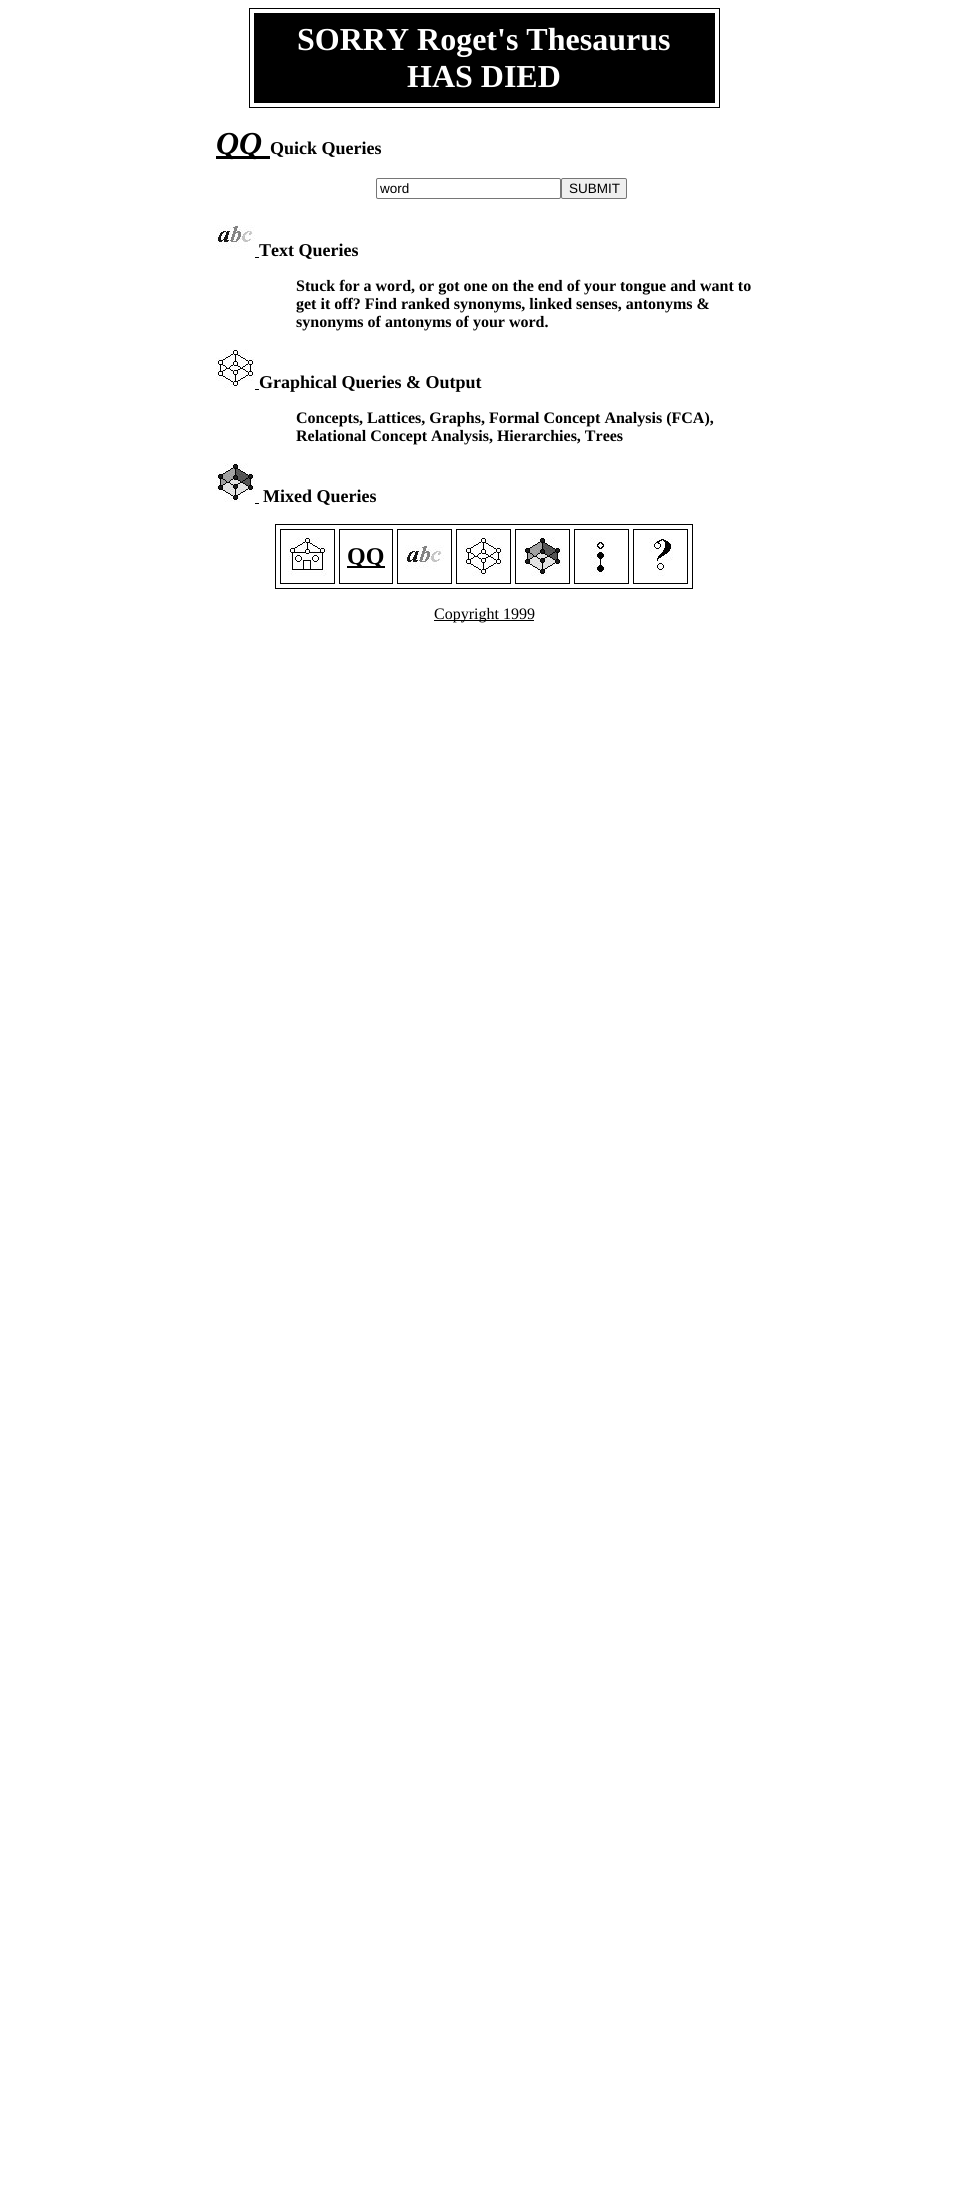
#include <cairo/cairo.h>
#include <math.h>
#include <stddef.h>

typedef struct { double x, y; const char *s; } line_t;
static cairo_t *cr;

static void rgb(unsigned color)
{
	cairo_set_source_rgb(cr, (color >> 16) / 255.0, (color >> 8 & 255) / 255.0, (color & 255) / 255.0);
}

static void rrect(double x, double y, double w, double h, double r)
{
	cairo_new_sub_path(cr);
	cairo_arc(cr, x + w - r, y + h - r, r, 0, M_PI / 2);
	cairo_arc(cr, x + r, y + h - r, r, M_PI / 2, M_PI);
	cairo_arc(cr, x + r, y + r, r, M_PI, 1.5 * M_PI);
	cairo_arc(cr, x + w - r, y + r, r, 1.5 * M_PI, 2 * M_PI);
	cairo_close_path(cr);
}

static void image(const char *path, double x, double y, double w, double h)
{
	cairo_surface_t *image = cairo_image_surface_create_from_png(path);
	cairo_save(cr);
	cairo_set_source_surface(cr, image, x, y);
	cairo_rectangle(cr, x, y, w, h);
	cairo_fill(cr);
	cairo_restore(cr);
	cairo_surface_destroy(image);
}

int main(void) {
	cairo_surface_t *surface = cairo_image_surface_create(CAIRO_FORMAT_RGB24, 968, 2192);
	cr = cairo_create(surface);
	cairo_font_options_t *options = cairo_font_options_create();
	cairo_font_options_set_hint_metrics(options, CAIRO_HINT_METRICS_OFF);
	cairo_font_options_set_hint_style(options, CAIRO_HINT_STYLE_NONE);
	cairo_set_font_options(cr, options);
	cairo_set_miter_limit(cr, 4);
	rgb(0xffffff);
	cairo_paint(cr);
	cairo_rectangle(cr, 249.5, 8.5, 470, 99);
	rgb(0x000000);
	cairo_set_line_width(cr, 1);
	cairo_stroke(cr);
	cairo_rectangle(cr, 254, 13, 461, 90);
	cairo_fill(cr);
	cairo_rectangle(cr, 216, 156, 54, 3);
	cairo_fill(cr);
	rrect(376.5, 178.5, 184, 20, 1.5);
	rgb(0x767676);
	cairo_stroke(cr);
	rgb(0xefefef);
	rrect(561.5, 178.5, 65, 20, 1.5);
	cairo_fill_preserve(cr);
	rgb(0x767676);
	cairo_stroke(cr);
	image("img/1.png", 216, 225, 39, 24);
	rgb(0x000000);
	cairo_rectangle(cr, 255, 257, 4, 1);
	cairo_fill(cr);
	image("img/2.png", 216, 349, 39, 39);
	cairo_rectangle(cr, 255, 389, 4, 1);
	cairo_fill(cr);
	image("img/3.png", 216, 463, 39, 39);
	cairo_rectangle(cr, 255, 503, 4, 1);
	cairo_fill(cr);
	cairo_rectangle(cr, 275.5, 524.5, 417, 64);
	cairo_stroke(cr);
	cairo_rectangle(cr, 280.5, 529.5, 54, 54);
	cairo_stroke(cr);
	image("img/4.png", 288, 537, 39, 39);
	cairo_rectangle(cr, 339.5, 529.5, 53, 54);
	cairo_stroke(cr);
	cairo_rectangle(cr, 347, 566, 38, 2);
	cairo_fill(cr);
	cairo_rectangle(cr, 397.5, 529.5, 54, 54);
	cairo_stroke(cr);
	image("img/1.png", 405, 545, 39, 24);
	cairo_rectangle(cr, 456.5, 529.5, 54, 54);
	cairo_stroke(cr);
	image("img/2.png", 464, 537, 39, 39);
	cairo_rectangle(cr, 515.5, 529.5, 54, 54);
	cairo_stroke(cr);
	image("img/3.png", 523, 537, 39, 39);
	cairo_rectangle(cr, 574.5, 529.5, 54, 54);
	cairo_stroke(cr);
	image("img/5.png", 590, 537, 16, 39);
	cairo_rectangle(cr, 633.5, 529.5, 54, 54);
	cairo_stroke(cr);
	image("img/6.png", 649, 537, 24, 39);
	cairo_rectangle(cr, 434, 620, 100, 1);
	cairo_fill(cr);
	cairo_select_font_face(cr, "Liberation Serif", CAIRO_FONT_SLANT_NORMAL, CAIRO_FONT_WEIGHT_BOLD);
	cairo_set_font_size(cr, 32);
	rgb(0xffffff);
	cairo_move_to(cr, 297, 50);
	cairo_show_text(cr, "SORRY Roget's Thesaurus");
	cairo_move_to(cr, 407, 87);
	cairo_show_text(cr, "HAS DIED");
	cairo_select_font_face(cr, "Liberation Serif", CAIRO_FONT_SLANT_ITALIC, CAIRO_FONT_WEIGHT_BOLD);
	rgb(0x000000);
	cairo_move_to(cr, 216, 154);
	cairo_show_text(cr, "QQ");
	cairo_select_font_face(cr, "Liberation Serif", CAIRO_FONT_SLANT_NORMAL, CAIRO_FONT_WEIGHT_BOLD);
	cairo_set_font_size(cr, 18);
	cairo_move_to(cr, 270, 154);
	cairo_show_text(cr, "Quick Queries");
	cairo_select_font_face(cr, "Liberation Sans", CAIRO_FONT_SLANT_NORMAL, CAIRO_FONT_WEIGHT_NORMAL);
	cairo_set_font_size(cr, 13.5);
	cairo_move_to(cr, 380, 193);
	cairo_show_text(cr, "word");
	cairo_move_to(cr, 569, 193);
	cairo_show_text(cr, "SUBMIT");
	cairo_select_font_face(cr, "Liberation Serif", CAIRO_FONT_SLANT_NORMAL, CAIRO_FONT_WEIGHT_BOLD);
	cairo_set_font_size(cr, 18);
	cairo_move_to(cr, 259, 256);
	cairo_show_text(cr, "Text Queries");
	cairo_set_font_size(cr, 16);
	{
		static const line_t items[] = {
			{296, 291, "Stuck for a word, or got one on the end of your tongue and want to"},
			{296, 309, "get it off? Find ranked synonyms, linked senses, antonyms &"},
			{296, 327, "synonyms of antonyms of your word."},
		};
		for (size_t i = 0; i < sizeof items / sizeof *items; i++) {
			cairo_move_to(cr, items[i].x, items[i].y);
			cairo_show_text(cr, items[i].s);
		}
	}
	cairo_set_font_size(cr, 18);
	cairo_move_to(cr, 259, 388);
	cairo_show_text(cr, "Graphical Queries & Output");
	cairo_set_font_size(cr, 16);
	cairo_move_to(cr, 296, 423);
	cairo_show_text(cr, "Concepts, Lattices, Graphs, Formal Concept Analysis (FCA),");
	cairo_move_to(cr, 296, 441);
	cairo_show_text(cr, "Relational Concept Analysis, Hierarchies, Trees");
	cairo_set_font_size(cr, 18);
	cairo_move_to(cr, 263, 502);
	cairo_show_text(cr, "Mixed Queries");
	cairo_set_font_size(cr, 24);
	cairo_move_to(cr, 347, 564);
	cairo_show_text(cr, "QQ");
	cairo_select_font_face(cr, "Liberation Serif", CAIRO_FONT_SLANT_NORMAL, CAIRO_FONT_WEIGHT_NORMAL);
	cairo_set_font_size(cr, 16);
	cairo_move_to(cr, 434, 619);
	cairo_show_text(cr, "Copyright 1999");
	cairo_surface_write_to_png(surface, "page.png");
	cairo_font_options_destroy(options);
	cairo_destroy(cr);
	cairo_surface_destroy(surface);
	return 0;
}
